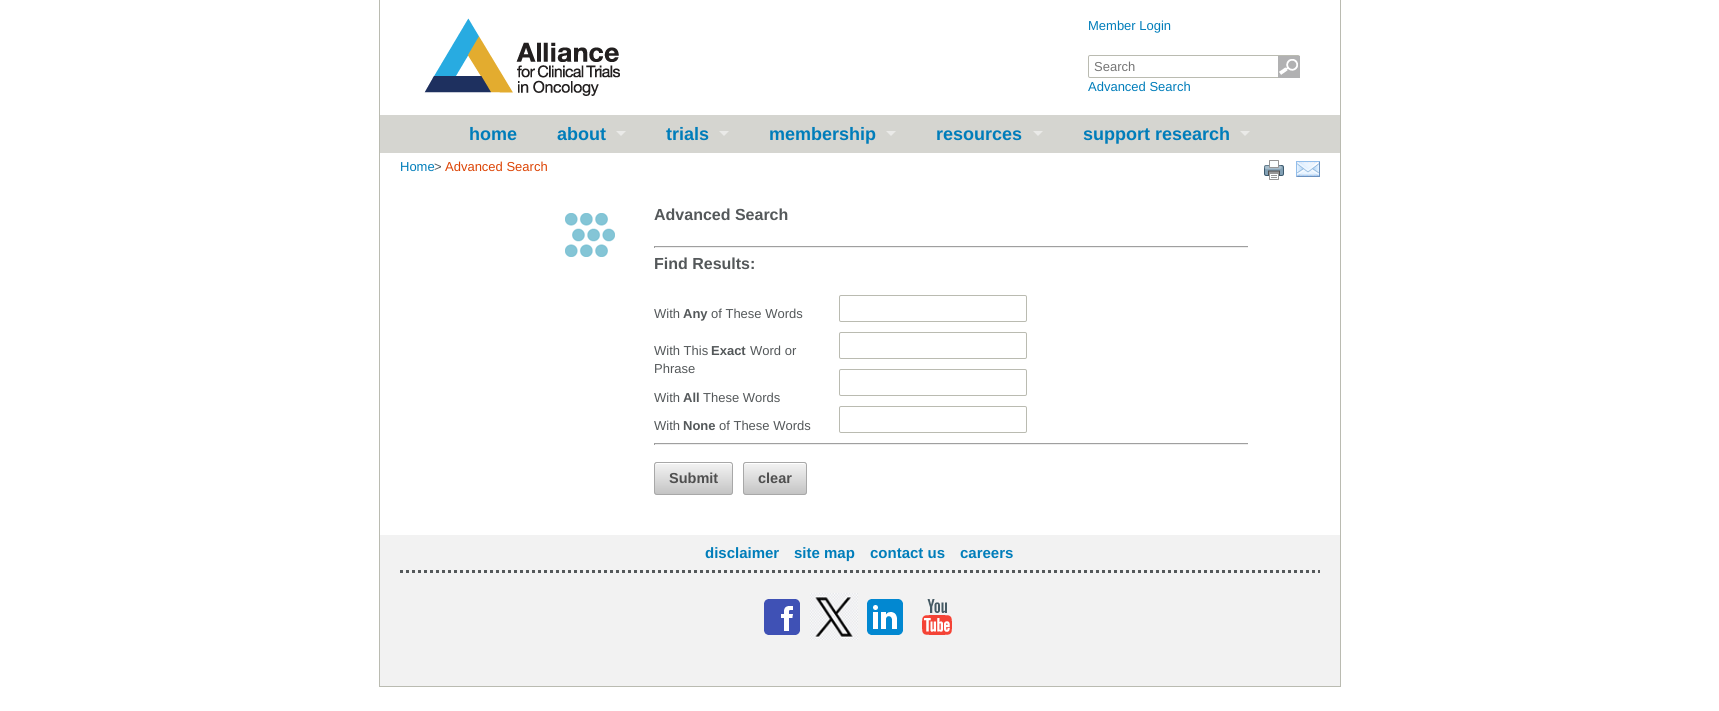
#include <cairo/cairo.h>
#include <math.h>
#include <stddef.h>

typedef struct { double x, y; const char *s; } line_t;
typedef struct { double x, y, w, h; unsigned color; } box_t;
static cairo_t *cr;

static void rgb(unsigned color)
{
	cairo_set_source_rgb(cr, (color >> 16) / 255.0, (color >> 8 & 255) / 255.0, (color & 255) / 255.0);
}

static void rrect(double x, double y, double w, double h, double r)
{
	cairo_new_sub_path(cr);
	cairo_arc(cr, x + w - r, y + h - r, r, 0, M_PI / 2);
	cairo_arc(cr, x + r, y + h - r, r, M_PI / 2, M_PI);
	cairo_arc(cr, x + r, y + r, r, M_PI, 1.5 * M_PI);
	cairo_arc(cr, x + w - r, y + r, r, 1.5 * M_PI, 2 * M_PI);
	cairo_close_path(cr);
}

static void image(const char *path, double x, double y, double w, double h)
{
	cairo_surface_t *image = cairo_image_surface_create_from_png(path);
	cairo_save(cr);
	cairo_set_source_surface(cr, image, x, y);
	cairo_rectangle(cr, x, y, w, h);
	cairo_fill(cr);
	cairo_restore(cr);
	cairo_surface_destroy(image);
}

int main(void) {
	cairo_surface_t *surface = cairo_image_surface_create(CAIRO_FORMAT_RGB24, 1719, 711);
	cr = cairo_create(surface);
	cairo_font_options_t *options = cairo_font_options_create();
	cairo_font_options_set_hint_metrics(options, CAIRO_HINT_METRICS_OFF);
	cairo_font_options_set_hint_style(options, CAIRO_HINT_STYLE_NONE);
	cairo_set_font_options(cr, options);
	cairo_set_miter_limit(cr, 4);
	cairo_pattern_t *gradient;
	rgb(0xffffff);
	cairo_paint(cr);
	{
		static const box_t items[] = {
			{1340, 0, 1, 687, 0xbabbb1},
			{379, 686, 962, 1, 0xbabbb1},
			{379, 0, 1, 687, 0xbabbb1},
		};
		for (size_t i = 0; i < sizeof items / sizeof *items; i++) {
			rgb(items[i].color);
			cairo_rectangle(cr, items[i].x, items[i].y, items[i].w, items[i].h);
			cairo_fill(cr);
		}
	}
	image("img/1.png", 424, 18, 196, 78);
	rrect(1088.5, 55.5, 211, 22, 1.5);
	cairo_set_line_width(cr, 1);
	cairo_stroke(cr);
	image("img/2.png", 1278, 56, 22, 22);
	rgb(0xd5d5d0);
	cairo_rectangle(cr, 380, 115, 960, 38);
	cairo_fill(cr);
	rgb(0xeaeae8);
	cairo_new_path(cr);
	cairo_move_to(cr, 616, 131);
	cairo_line_to(cr, 626, 131);
	cairo_line_to(cr, 621, 136);
	cairo_close_path(cr);
	cairo_fill(cr);
	cairo_new_path(cr);
	cairo_move_to(cr, 719, 131);
	cairo_line_to(cr, 729, 131);
	cairo_line_to(cr, 724, 136);
	cairo_close_path(cr);
	cairo_fill(cr);
	cairo_new_path(cr);
	cairo_move_to(cr, 886, 131);
	cairo_line_to(cr, 896, 131);
	cairo_line_to(cr, 891, 136);
	cairo_close_path(cr);
	cairo_fill(cr);
	cairo_new_path(cr);
	cairo_move_to(cr, 1033, 131);
	cairo_line_to(cr, 1043, 131);
	cairo_line_to(cr, 1038, 136);
	cairo_close_path(cr);
	cairo_fill(cr);
	cairo_new_path(cr);
	cairo_move_to(cr, 1240, 131);
	cairo_line_to(cr, 1250, 131);
	cairo_line_to(cr, 1245, 136);
	cairo_close_path(cr);
	cairo_fill(cr);
	image("img/3.png", 565, 213, 50, 44);
	image("img/4.png", 1264, 160, 20, 20);
	image("img/5.png", 1296, 161, 24, 16);
	{
		static const box_t items[] = {
			{654, 246, 594, 1, 0x9f9f9f},
			{654, 247, 594, 1, 0xeeeeee},
			{654, 246, 1, 2, 0x9f9f9f},
		};
		for (size_t i = 0; i < sizeof items / sizeof *items; i++) {
			rgb(items[i].color);
			cairo_rectangle(cr, items[i].x, items[i].y, items[i].w, items[i].h);
			cairo_fill(cr);
		}
	}
	rrect(839.5, 295.5, 187, 26, 1.5);
	rgb(0xbabbb1);
	cairo_stroke(cr);
	rrect(839.5, 332.5, 187, 26, 1.5);
	cairo_stroke(cr);
	rrect(839.5, 369.5, 187, 26, 1.5);
	cairo_stroke(cr);
	rrect(839.5, 406.5, 187, 26, 1.5);
	cairo_stroke(cr);
	{
		static const box_t items[] = {
			{654, 443, 594, 1, 0x9f9f9f},
			{654, 444, 594, 1, 0xeeeeee},
			{654, 443, 1, 2, 0x9f9f9f},
		};
		for (size_t i = 0; i < sizeof items / sizeof *items; i++) {
			rgb(items[i].color);
			cairo_rectangle(cr, items[i].x, items[i].y, items[i].w, items[i].h);
			cairo_fill(cr);
		}
	}
	rgb(0xc4c4c4);
	rrect(654, 462, 79, 33, 3);
	cairo_fill(cr);
	cairo_save(cr);
	rrect(654, 462, 79, 33, 3);
	cairo_clip(cr);
	gradient = cairo_pattern_create_linear(655, 463, 655, 494);
	cairo_pattern_add_color_stop_rgba(gradient, 0, 1, 1, 1, 0.8);
	cairo_pattern_add_color_stop_rgba(gradient, 1, 1, 1, 1, 0);
	cairo_set_source(cr, gradient);
	cairo_pattern_destroy(gradient);
	cairo_rectangle(cr, 654, 463, 79, 30);
	cairo_fill(cr);
	cairo_restore(cr);
	rgb(0xffffff);
	cairo_new_path(cr);
	cairo_move_to(cr, 657, 464);
	cairo_line_to(cr, 730, 464);
	cairo_line_to(cr, 732, 466);
	cairo_curve_to(cr, 732, 460, 721, 463, 718, 463);
	cairo_line_to(cr, 656, 463);
	cairo_line_to(cr, 655, 465);
	cairo_curve_to(cr, 655, 465, 656, 464, 657, 464);
	cairo_close_path(cr);
	cairo_fill(cr);
	rrect(654.5, 462.5, 78, 32, 2.5);
	rgb(0xa8a8a8);
	cairo_stroke(cr);
	rgb(0xc4c4c4);
	rrect(743, 462, 64, 33, 3);
	cairo_fill(cr);
	cairo_save(cr);
	rrect(743, 462, 64, 33, 3);
	cairo_clip(cr);
	gradient = cairo_pattern_create_linear(744, 463, 744, 494);
	cairo_pattern_add_color_stop_rgba(gradient, 0, 1, 1, 1, 0.8);
	cairo_pattern_add_color_stop_rgba(gradient, 1, 1, 1, 1, 0);
	cairo_set_source(cr, gradient);
	cairo_pattern_destroy(gradient);
	cairo_rectangle(cr, 743, 463, 64, 30);
	cairo_fill(cr);
	cairo_restore(cr);
	rgb(0xffffff);
	cairo_new_path(cr);
	cairo_move_to(cr, 746, 464);
	cairo_line_to(cr, 804, 464);
	cairo_curve_to(cr, 805, 464, 806, 465, 806, 466);
	cairo_curve_to(cr, 806, 460, 798, 463, 794, 463);
	cairo_line_to(cr, 756, 463);
	cairo_curve_to(cr, 752, 463, 744, 460, 744, 466);
	cairo_curve_to(cr, 744, 465, 745, 464, 746, 464);
	cairo_close_path(cr);
	cairo_fill(cr);
	rrect(743.5, 462.5, 63, 32, 2.5);
	rgb(0xa8a8a8);
	cairo_stroke(cr);
	rgb(0xf2f2f2);
	cairo_rectangle(cr, 380, 535, 960, 151);
	cairo_fill(cr);
	cairo_new_path(cr);
	cairo_move_to(cr, 400, 571.5);
	cairo_line_to(cr, 1320, 571.5);
	rgb(0x54585a);
	cairo_set_line_width(cr, 3);
	cairo_set_dash(cr, (double[]){3, 3}, 2, 0);
	cairo_stroke(cr);
	image("img/6.png", 764, 599, 36, 36);
	image("img/7.png", 810, 593, 48, 47);
	image("img/8.png", 867, 599, 36, 36);
	image("img/9.png", 922, 599, 30, 36);
	cairo_select_font_face(cr, "Liberation Sans", CAIRO_FONT_SLANT_NORMAL, CAIRO_FONT_WEIGHT_NORMAL);
	cairo_set_font_size(cr, 13);
	rgb(0x007dba);
	cairo_move_to(cr, 1088, 30);
	cairo_show_text(cr, "Member Login");
	rgb(0x757575);
	cairo_move_to(cr, 1094, 71);
	cairo_show_text(cr, "Search");
	rgb(0x007dba);
	cairo_move_to(cr, 1088, 91);
	cairo_show_text(cr, "Advanced Search");
	cairo_select_font_face(cr, "Liberation Sans", CAIRO_FONT_SLANT_NORMAL, CAIRO_FONT_WEIGHT_BOLD);
	cairo_set_font_size(cr, 18);
	{
		static const line_t items[] = {
			{469, 140, "home"},
			{557, 140, "about"},
			{666, 140, "trials"},
			{769, 140, "membership"},
			{936, 140, "resources"},
			{1083, 140, "support research"},
		};
		for (size_t i = 0; i < sizeof items / sizeof *items; i++) {
			cairo_move_to(cr, items[i].x, items[i].y);
			cairo_show_text(cr, items[i].s);
		}
	}
	cairo_select_font_face(cr, "Liberation Sans", CAIRO_FONT_SLANT_NORMAL, CAIRO_FONT_WEIGHT_NORMAL);
	cairo_set_font_size(cr, 13);
	cairo_move_to(cr, 400, 171);
	cairo_show_text(cr, "Home");
	rgb(0x54585a);
	cairo_move_to(cr, 434, 171);
	cairo_show_text(cr, ">");
	rgb(0xdc4405);
	cairo_move_to(cr, 445, 171);
	cairo_show_text(cr, "Advanced Search");
	cairo_select_font_face(cr, "Liberation Sans", CAIRO_FONT_SLANT_NORMAL, CAIRO_FONT_WEIGHT_BOLD);
	cairo_set_font_size(cr, 16);
	rgb(0x54585a);
	cairo_move_to(cr, 654, 220);
	cairo_show_text(cr, "Advanced Search");
	cairo_move_to(cr, 654, 269);
	cairo_show_text(cr, "Find Results:");
	cairo_select_font_face(cr, "Liberation Sans", CAIRO_FONT_SLANT_NORMAL, CAIRO_FONT_WEIGHT_NORMAL);
	cairo_set_font_size(cr, 13);
	cairo_move_to(cr, 654, 318);
	cairo_show_text(cr, "With");
	cairo_select_font_face(cr, "Liberation Sans", CAIRO_FONT_SLANT_NORMAL, CAIRO_FONT_WEIGHT_BOLD);
	cairo_move_to(cr, 683, 318);
	cairo_show_text(cr, "Any");
	cairo_select_font_face(cr, "Liberation Sans", CAIRO_FONT_SLANT_NORMAL, CAIRO_FONT_WEIGHT_NORMAL);
	cairo_move_to(cr, 711, 318);
	cairo_show_text(cr, "of These Words");
	cairo_move_to(cr, 654, 355);
	cairo_show_text(cr, "With This");
	cairo_select_font_face(cr, "Liberation Sans", CAIRO_FONT_SLANT_NORMAL, CAIRO_FONT_WEIGHT_BOLD);
	cairo_move_to(cr, 711, 355);
	cairo_show_text(cr, "Exact");
	cairo_select_font_face(cr, "Liberation Sans", CAIRO_FONT_SLANT_NORMAL, CAIRO_FONT_WEIGHT_NORMAL);
	{
		static const line_t items[] = {
			{750, 355, "Word or"},
			{654, 373, "Phrase"},
			{654, 402, "With"},
		};
		for (size_t i = 0; i < sizeof items / sizeof *items; i++) {
			cairo_move_to(cr, items[i].x, items[i].y);
			cairo_show_text(cr, items[i].s);
		}
	}
	cairo_select_font_face(cr, "Liberation Sans", CAIRO_FONT_SLANT_NORMAL, CAIRO_FONT_WEIGHT_BOLD);
	cairo_move_to(cr, 683, 402);
	cairo_show_text(cr, "All");
	cairo_select_font_face(cr, "Liberation Sans", CAIRO_FONT_SLANT_NORMAL, CAIRO_FONT_WEIGHT_NORMAL);
	cairo_move_to(cr, 703, 402);
	cairo_show_text(cr, "These Words");
	cairo_move_to(cr, 654, 430);
	cairo_show_text(cr, "With");
	cairo_select_font_face(cr, "Liberation Sans", CAIRO_FONT_SLANT_NORMAL, CAIRO_FONT_WEIGHT_BOLD);
	cairo_move_to(cr, 683, 430);
	cairo_show_text(cr, "None");
	cairo_select_font_face(cr, "Liberation Sans", CAIRO_FONT_SLANT_NORMAL, CAIRO_FONT_WEIGHT_NORMAL);
	cairo_move_to(cr, 719, 430);
	cairo_show_text(cr, "of These Words");
	cairo_select_font_face(cr, "Liberation Sans", CAIRO_FONT_SLANT_NORMAL, CAIRO_FONT_WEIGHT_BOLD);
	cairo_set_font_size(cr, 14.5);
	rgb(0x4f4f4f);
	cairo_move_to(cr, 669, 483);
	cairo_show_text(cr, "Submit");
	cairo_move_to(cr, 758, 483);
	cairo_show_text(cr, "clear");
	cairo_set_font_size(cr, 15);
	rgb(0x007dba);
	{
		static const line_t items[] = {
			{705, 558, "disclaimer"},
			{794, 558, "site map"},
			{870, 558, "contact us"},
			{960, 558, "careers"},
		};
		for (size_t i = 0; i < sizeof items / sizeof *items; i++) {
			cairo_move_to(cr, items[i].x, items[i].y);
			cairo_show_text(cr, items[i].s);
		}
	}
	cairo_surface_write_to_png(surface, "page.png");
	cairo_font_options_destroy(options);
	cairo_destroy(cr);
	cairo_surface_destroy(surface);
	return 0;
}
